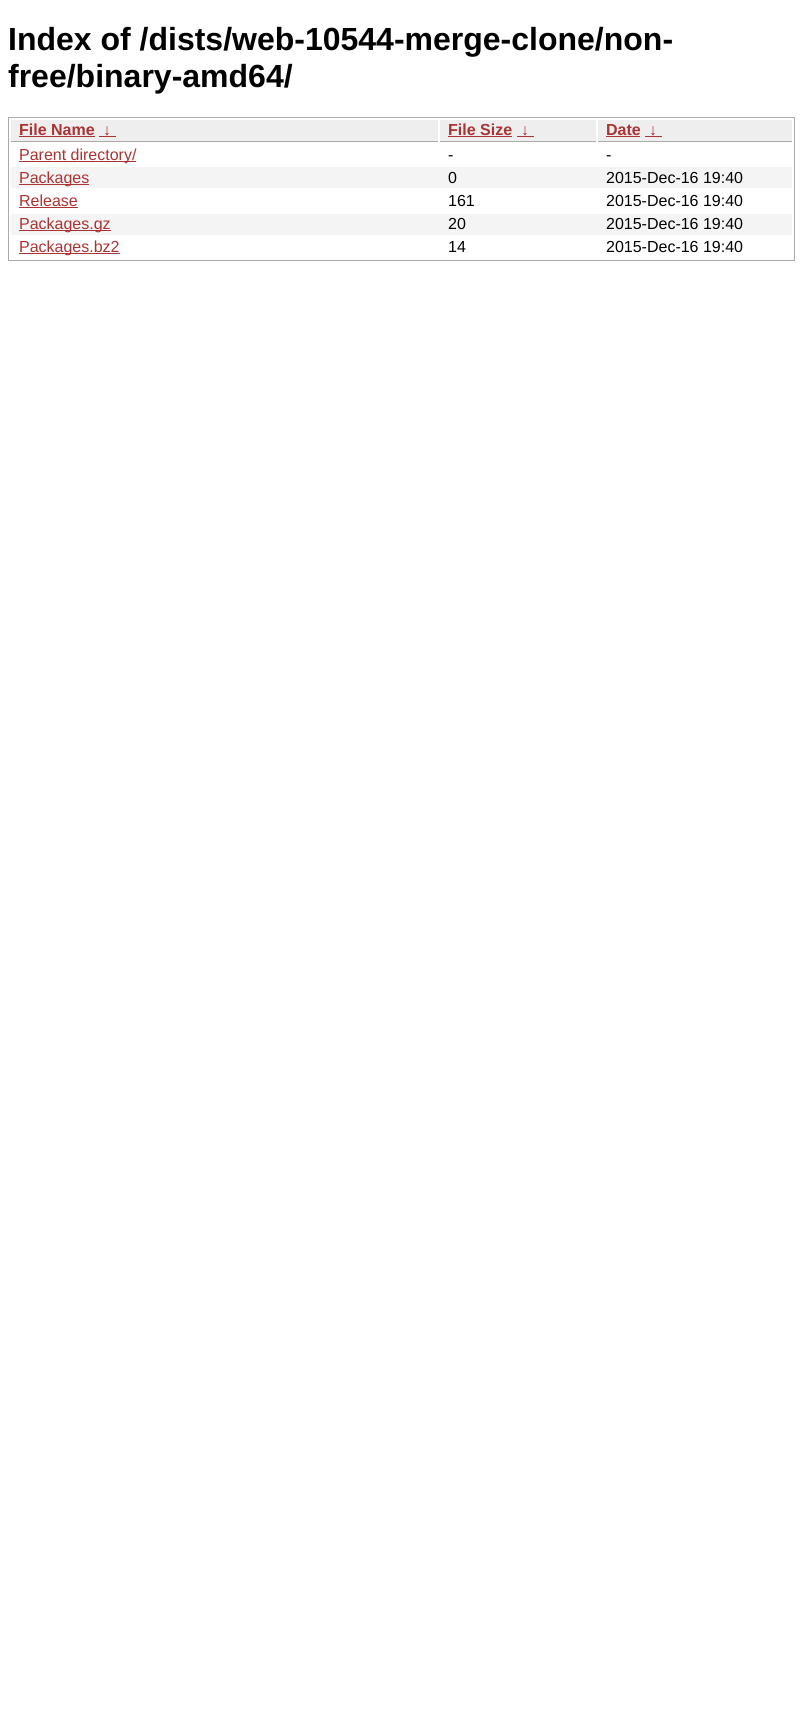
#include <cairo/cairo.h>
#include <math.h>
#include <stddef.h>

typedef struct { double x, y; const char *s; } line_t;
typedef struct { double x, y, w, h; unsigned color; } box_t;
static cairo_t *cr;

static void rgb(unsigned color)
{
	cairo_set_source_rgb(cr, (color >> 16) / 255.0, (color >> 8 & 255) / 255.0, (color & 255) / 255.0);
}

int main(void) {
	cairo_surface_t *surface = cairo_image_surface_create(CAIRO_FORMAT_RGB24, 803, 1724);
	cr = cairo_create(surface);
	cairo_font_options_t *options = cairo_font_options_create();
	cairo_font_options_set_hint_metrics(options, CAIRO_HINT_METRICS_OFF);
	cairo_font_options_set_hint_style(options, CAIRO_HINT_STYLE_NONE);
	cairo_set_font_options(cr, options);
	cairo_set_miter_limit(cr, 4);
	rgb(0xffffff);
	cairo_paint(cr);
	cairo_rectangle(cr, 8.5, 117.5, 786, 143);
	rgb(0xaaaaaa);
	cairo_set_line_width(cr, 1);
	cairo_stroke(cr);
	{
		static const box_t items[] = {
			{11, 120, 427, 21, 0xeeeeee},
			{11, 141, 427, 1, 0xaaaaaa},
			{19, 136, 76, 1, 0xaa3333},
			{99, 136, 17, 1, 0xaa3333},
			{440, 120, 156, 21, 0xeeeeee},
			{440, 141, 156, 1, 0xaaaaaa},
			{448, 136, 64, 1, 0xaa3333},
			{517, 136, 17, 1, 0xaa3333},
			{598, 120, 194, 21, 0xeeeeee},
			{598, 141, 194, 1, 0xaaaaaa},
			{606, 136, 34, 1, 0xaa3333},
			{645, 136, 17, 1, 0xaa3333},
			{19, 161, 117, 1, 0xaa3333},
			{11, 167, 781, 21, 0xf4f4f4},
			{19, 184, 70, 1, 0xaa3333},
			{19, 207, 59, 1, 0xaa3333},
			{11, 214, 781, 21, 0xf4f4f4},
			{19, 230, 92, 1, 0xaa3333},
			{19, 253, 101, 1, 0xaa3333},
		};
		for (size_t i = 0; i < sizeof items / sizeof *items; i++) {
			rgb(items[i].color);
			cairo_rectangle(cr, items[i].x, items[i].y, items[i].w, items[i].h);
			cairo_fill(cr);
		}
	}
	cairo_select_font_face(cr, "Liberation Sans", CAIRO_FONT_SLANT_NORMAL, CAIRO_FONT_WEIGHT_BOLD);
	cairo_set_font_size(cr, 32);
	rgb(0x000000);
	cairo_move_to(cr, 8, 50);
	cairo_show_text(cr, "Index of /dists/web-10544-merge-clone/non-");
	cairo_move_to(cr, 8, 87);
	cairo_show_text(cr, "free/binary-amd64/");
	cairo_set_font_size(cr, 16);
	rgb(0xaa3333);
	{
		static const line_t items[] = {
			{19, 135, "File Name"},
			{103, 135, "↓"},
			{448, 135, "File Size"},
			{521, 135, "↓"},
			{606, 135, "Date"},
			{649, 135, "↓"},
		};
		for (size_t i = 0; i < sizeof items / sizeof *items; i++) {
			cairo_move_to(cr, items[i].x, items[i].y);
			cairo_show_text(cr, items[i].s);
		}
	}
	cairo_select_font_face(cr, "Liberation Sans", CAIRO_FONT_SLANT_NORMAL, CAIRO_FONT_WEIGHT_NORMAL);
	cairo_move_to(cr, 19, 160);
	cairo_show_text(cr, "Parent directory/");
	rgb(0x000000);
	cairo_move_to(cr, 448, 160);
	cairo_show_text(cr, "-");
	cairo_move_to(cr, 606, 160);
	cairo_show_text(cr, "-");
	rgb(0xaa3333);
	cairo_move_to(cr, 19, 183);
	cairo_show_text(cr, "Packages");
	rgb(0x000000);
	cairo_move_to(cr, 448, 183);
	cairo_show_text(cr, "0");
	cairo_move_to(cr, 606, 183);
	cairo_show_text(cr, "2015-Dec-16 19:40");
	rgb(0xaa3333);
	cairo_move_to(cr, 19, 206);
	cairo_show_text(cr, "Release");
	rgb(0x000000);
	cairo_move_to(cr, 448, 206);
	cairo_show_text(cr, "161");
	cairo_move_to(cr, 606, 206);
	cairo_show_text(cr, "2015-Dec-16 19:40");
	rgb(0xaa3333);
	cairo_move_to(cr, 19, 229);
	cairo_show_text(cr, "Packages.gz");
	rgb(0x000000);
	cairo_move_to(cr, 448, 229);
	cairo_show_text(cr, "20");
	cairo_move_to(cr, 606, 229);
	cairo_show_text(cr, "2015-Dec-16 19:40");
	rgb(0xaa3333);
	cairo_move_to(cr, 19, 252);
	cairo_show_text(cr, "Packages.bz2");
	rgb(0x000000);
	cairo_move_to(cr, 448, 252);
	cairo_show_text(cr, "14");
	cairo_move_to(cr, 606, 252);
	cairo_show_text(cr, "2015-Dec-16 19:40");
	cairo_surface_write_to_png(surface, "page.png");
	cairo_font_options_destroy(options);
	cairo_destroy(cr);
	cairo_surface_destroy(surface);
	return 0;
}
